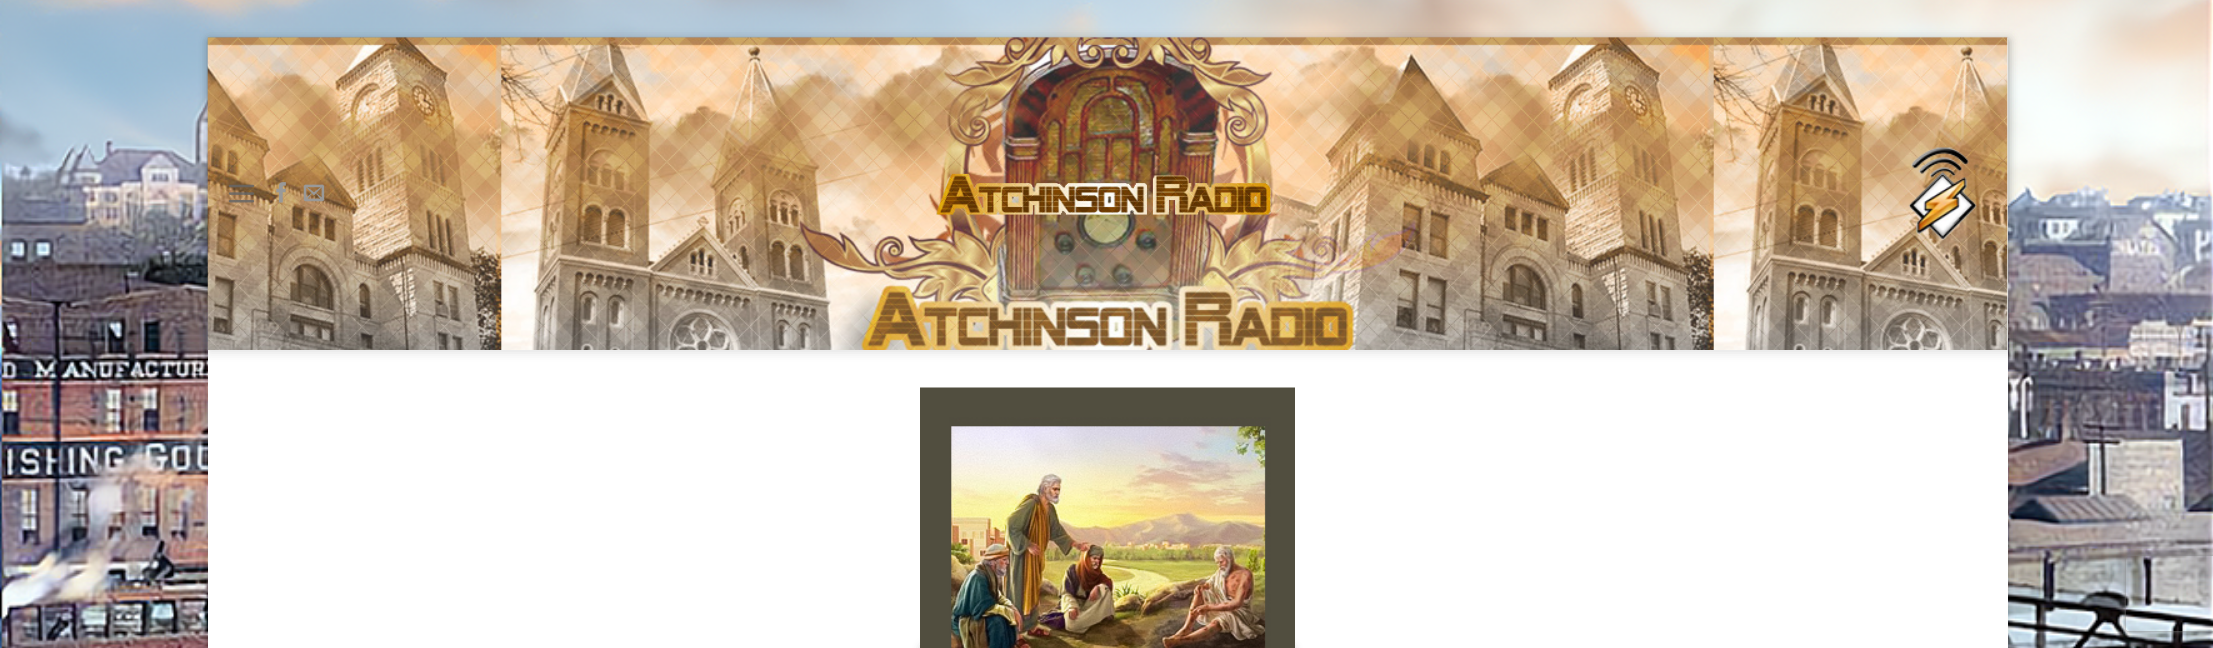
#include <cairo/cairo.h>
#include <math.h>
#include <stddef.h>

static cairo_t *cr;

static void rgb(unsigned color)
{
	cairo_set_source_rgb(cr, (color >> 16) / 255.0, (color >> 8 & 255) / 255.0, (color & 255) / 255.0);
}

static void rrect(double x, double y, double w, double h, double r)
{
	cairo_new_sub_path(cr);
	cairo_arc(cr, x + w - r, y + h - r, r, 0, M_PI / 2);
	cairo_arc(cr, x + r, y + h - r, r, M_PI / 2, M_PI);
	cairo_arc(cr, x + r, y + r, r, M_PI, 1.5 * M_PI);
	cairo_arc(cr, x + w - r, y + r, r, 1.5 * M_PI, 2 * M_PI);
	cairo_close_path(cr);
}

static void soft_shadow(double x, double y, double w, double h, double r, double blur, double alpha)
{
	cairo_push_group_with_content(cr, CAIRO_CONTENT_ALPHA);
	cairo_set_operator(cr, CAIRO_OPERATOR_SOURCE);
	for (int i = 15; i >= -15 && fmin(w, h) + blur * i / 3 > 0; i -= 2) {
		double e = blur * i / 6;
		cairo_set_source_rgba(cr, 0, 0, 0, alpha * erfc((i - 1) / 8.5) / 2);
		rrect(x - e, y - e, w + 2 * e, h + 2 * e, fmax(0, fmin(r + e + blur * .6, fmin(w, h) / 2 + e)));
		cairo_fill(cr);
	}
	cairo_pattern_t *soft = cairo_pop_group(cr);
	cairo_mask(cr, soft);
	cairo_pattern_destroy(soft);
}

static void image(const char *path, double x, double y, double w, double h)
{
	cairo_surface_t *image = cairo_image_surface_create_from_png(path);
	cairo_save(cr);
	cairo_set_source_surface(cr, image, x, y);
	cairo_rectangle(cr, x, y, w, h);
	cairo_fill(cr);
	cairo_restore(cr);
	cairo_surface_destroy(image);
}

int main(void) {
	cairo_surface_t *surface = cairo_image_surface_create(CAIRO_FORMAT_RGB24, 2213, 648);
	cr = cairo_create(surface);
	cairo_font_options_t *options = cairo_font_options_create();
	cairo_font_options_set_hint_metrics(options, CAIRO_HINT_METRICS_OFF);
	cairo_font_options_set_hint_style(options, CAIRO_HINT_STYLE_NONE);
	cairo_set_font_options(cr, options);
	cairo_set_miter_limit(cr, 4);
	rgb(0xffffff);
	cairo_paint(cr);
	image("img/1.png", 0, 0, 2213, 648);
	rgb(0x000000);
	soft_shadow(208, 41, 1800, 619, 0, 4, 0.23);
	rgb(0xffffff);
	cairo_rectangle(cr, 208, 38, 1800, 610);
	cairo_fill(cr);
	rgb(0x000000);
	soft_shadow(209, 39, 1800, 312, 0, 6, 0.15);
	image("img/2.png", 207, 37, 1801, 313);
	cairo_set_source_rgba(cr, 1, 1, 1, 0.16);
	cairo_rectangle(cr, 208, 38, 1800, 312);
	cairo_fill(cr);
	image("img/3.png", 228, 184, 27, 19);
	image("img/4.png", 276, 182, 10, 21);
	image("img/5.png", 303, 184, 22, 18);
	image("img/6.png", 936, 173, 335, 42);
	image("img/7.png", 1908, 147, 69, 93);
	rgb(0x000000);
	soft_shadow(926, 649, 182, 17, 0, 6, 0.6);
	soft_shadow(1108, 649, 181, 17, 0, 6, 0.6);
	image("img/8.png", 920, 387, 375, 261);
	cairo_save(cr);
	cairo_set_fill_rule(cr, CAIRO_FILL_RULE_EVEN_ODD);
	cairo_new_path(cr);
	cairo_move_to(cr, 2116, 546);
	cairo_line_to(cr, 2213, 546);
	cairo_line_to(cr, 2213, 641);
	cairo_line_to(cr, 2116, 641);
	cairo_close_path(cr);
	cairo_move_to(cr, 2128.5, 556);
	cairo_line_to(cr, 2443.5, 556);
	cairo_curve_to(cr, 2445, 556, 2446, 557, 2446, 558.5);
	cairo_line_to(cr, 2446, 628.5);
	cairo_curve_to(cr, 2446, 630, 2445, 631, 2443.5, 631);
	cairo_line_to(cr, 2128.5, 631);
	cairo_curve_to(cr, 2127, 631, 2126, 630, 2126, 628.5);
	cairo_line_to(cr, 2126, 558.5);
	cairo_curve_to(cr, 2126, 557, 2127, 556, 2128.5, 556);
	cairo_close_path(cr);
	cairo_clip(cr);
	rgb(0x808080);
	soft_shadow(2126, 556, 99, 75, 2.5, 3, 1);
	cairo_restore(cr);
	cairo_surface_write_to_png(surface, "page.png");
	cairo_font_options_destroy(options);
	cairo_destroy(cr);
	cairo_surface_destroy(surface);
	return 0;
}
